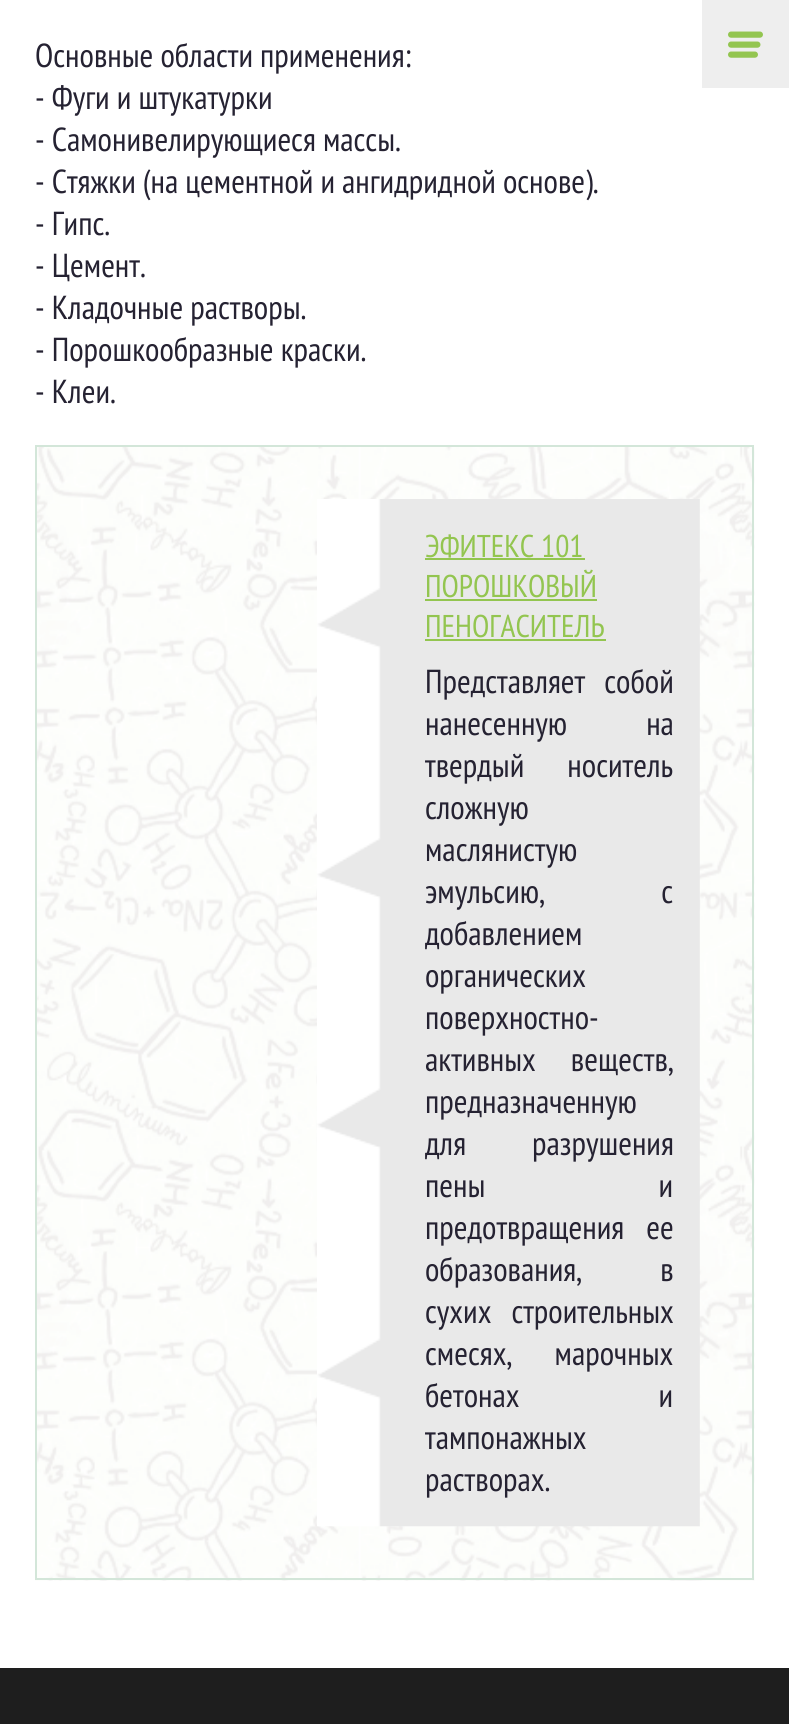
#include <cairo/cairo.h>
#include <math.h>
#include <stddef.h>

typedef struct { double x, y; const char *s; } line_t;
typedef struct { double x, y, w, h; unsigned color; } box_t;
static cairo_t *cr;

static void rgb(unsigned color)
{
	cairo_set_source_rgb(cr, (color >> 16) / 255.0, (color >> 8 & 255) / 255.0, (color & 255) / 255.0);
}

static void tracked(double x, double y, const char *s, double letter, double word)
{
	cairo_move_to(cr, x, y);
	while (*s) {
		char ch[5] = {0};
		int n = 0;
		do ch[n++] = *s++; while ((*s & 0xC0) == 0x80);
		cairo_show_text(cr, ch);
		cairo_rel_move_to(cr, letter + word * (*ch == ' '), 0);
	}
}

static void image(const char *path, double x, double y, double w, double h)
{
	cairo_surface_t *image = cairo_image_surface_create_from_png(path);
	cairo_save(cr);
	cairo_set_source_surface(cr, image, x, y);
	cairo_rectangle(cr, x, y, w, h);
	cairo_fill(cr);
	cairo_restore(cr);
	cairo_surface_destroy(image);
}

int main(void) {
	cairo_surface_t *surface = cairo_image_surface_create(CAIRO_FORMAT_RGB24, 789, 1724);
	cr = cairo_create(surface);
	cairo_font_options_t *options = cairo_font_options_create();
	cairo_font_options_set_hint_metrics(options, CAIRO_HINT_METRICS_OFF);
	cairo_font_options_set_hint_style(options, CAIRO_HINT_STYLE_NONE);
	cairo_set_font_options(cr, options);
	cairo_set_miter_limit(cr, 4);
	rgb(0xffffff);
	cairo_paint(cr);
	image("img/1.png", 35, 445, 720, 1136);
	cairo_rectangle(cr, 36, 446, 717, 1133);
	rgb(0xd3e6d9);
	cairo_stroke(cr);
	image("img/2.png", 317, 499, 383, 1028);
	{
		static const box_t items[] = {
			{425, 558, 160, 2, 0x93c550},
			{425, 599, 172, 2, 0x93c550},
			{425, 639, 181, 2, 0x93c550},
			{702, 0, 87, 88, 0xeeeeee},
		};
		for (size_t i = 0; i < sizeof items / sizeof *items; i++) {
			rgb(items[i].color);
			cairo_rectangle(cr, items[i].x, items[i].y, items[i].w, items[i].h);
			cairo_fill(cr);
		}
	}
	image("img/3.png", 728, 31, 35, 27);
	rgb(0x1e1e1e);
	cairo_rectangle(cr, 0, 1668, 789, 56);
	cairo_fill(cr);
	cairo_select_font_face(cr, "PT Sans Narrow", CAIRO_FONT_SLANT_NORMAL, CAIRO_FONT_WEIGHT_NORMAL);
	cairo_set_font_size(cr, 33.25);
	rgb(0x252232);
	{
		static const line_t items[] = {
			{35, 67, "Основные области применения:"},
			{35, 109, "- Фуги и штукатурки"},
			{35, 151, "- Самонивелирующиеся массы."},
			{35, 193, "- Стяжки (на цементной и ангидридной основе)."},
			{35, 235, "- Гипс."},
			{35, 277, "- Цемент."},
			{35, 319, "- Кладочные растворы."},
			{35, 361, "- Порошкообразные краски."},
			{35, 403, "- Клеи."},
		};
		for (size_t i = 0; i < sizeof items / sizeof *items; i++) {
			cairo_move_to(cr, items[i].x, items[i].y);
			cairo_show_text(cr, items[i].s);
		}
	}
	cairo_set_font_size(cr, 31.5);
	rgb(0x93c550);
	{
		static const line_t items[] = {
			{425, 557, "ЭФИТЕКС 101"},
			{425, 597, "ПОРОШКОВЫЙ"},
			{425, 637, "ПЕНОГАСИТЕЛЬ"},
		};
		for (size_t i = 0; i < sizeof items / sizeof *items; i++) {
			cairo_move_to(cr, items[i].x, items[i].y);
			cairo_show_text(cr, items[i].s);
		}
	}
	cairo_set_font_size(cr, 33.25);
	rgb(0x252232);
	tracked(425, 693, "Представляет собой", 0, 12);
	tracked(425, 735, "нанесенную на", 0, 72);
	tracked(425, 777, "твердый носитель", 0, 36);
	cairo_move_to(cr, 425, 819);
	cairo_show_text(cr, "сложную");
	cairo_move_to(cr, 425, 861);
	cairo_show_text(cr, "маслянистую");
	tracked(425, 903, "эмульсию, с", 0, 109);
	{
		static const line_t items[] = {
			{425, 945, "добавлением"},
			{425, 987, "органических"},
			{425, 1029, "поверхностно-"},
		};
		for (size_t i = 0; i < sizeof items / sizeof *items; i++) {
			cairo_move_to(cr, items[i].x, items[i].y);
			cairo_show_text(cr, items[i].s);
		}
	}
	tracked(425, 1071, "активных веществ,", 0, 28);
	cairo_move_to(cr, 425, 1113);
	cairo_show_text(cr, "предназначенную");
	tracked(425, 1155, "для разрушения", 0, 59);
	tracked(425, 1197, "пены и", 0, 166);
	tracked(425, 1239, "предотвращения ее", 0, 15);
	tracked(425, 1281, "образования, в", 0, 71);
	tracked(425, 1323, "сухих строительных", 0, 13);
	tracked(425, 1365, "смесях, марочных", 0, 35);
	tracked(425, 1407, "бетонах и", 0, 132);
	cairo_move_to(cr, 425, 1449);
	cairo_show_text(cr, "тампонажных");
	cairo_move_to(cr, 425, 1491);
	cairo_show_text(cr, "растворах.");
	cairo_surface_write_to_png(surface, "page.png");
	cairo_font_options_destroy(options);
	cairo_destroy(cr);
	cairo_surface_destroy(surface);
	return 0;
}
